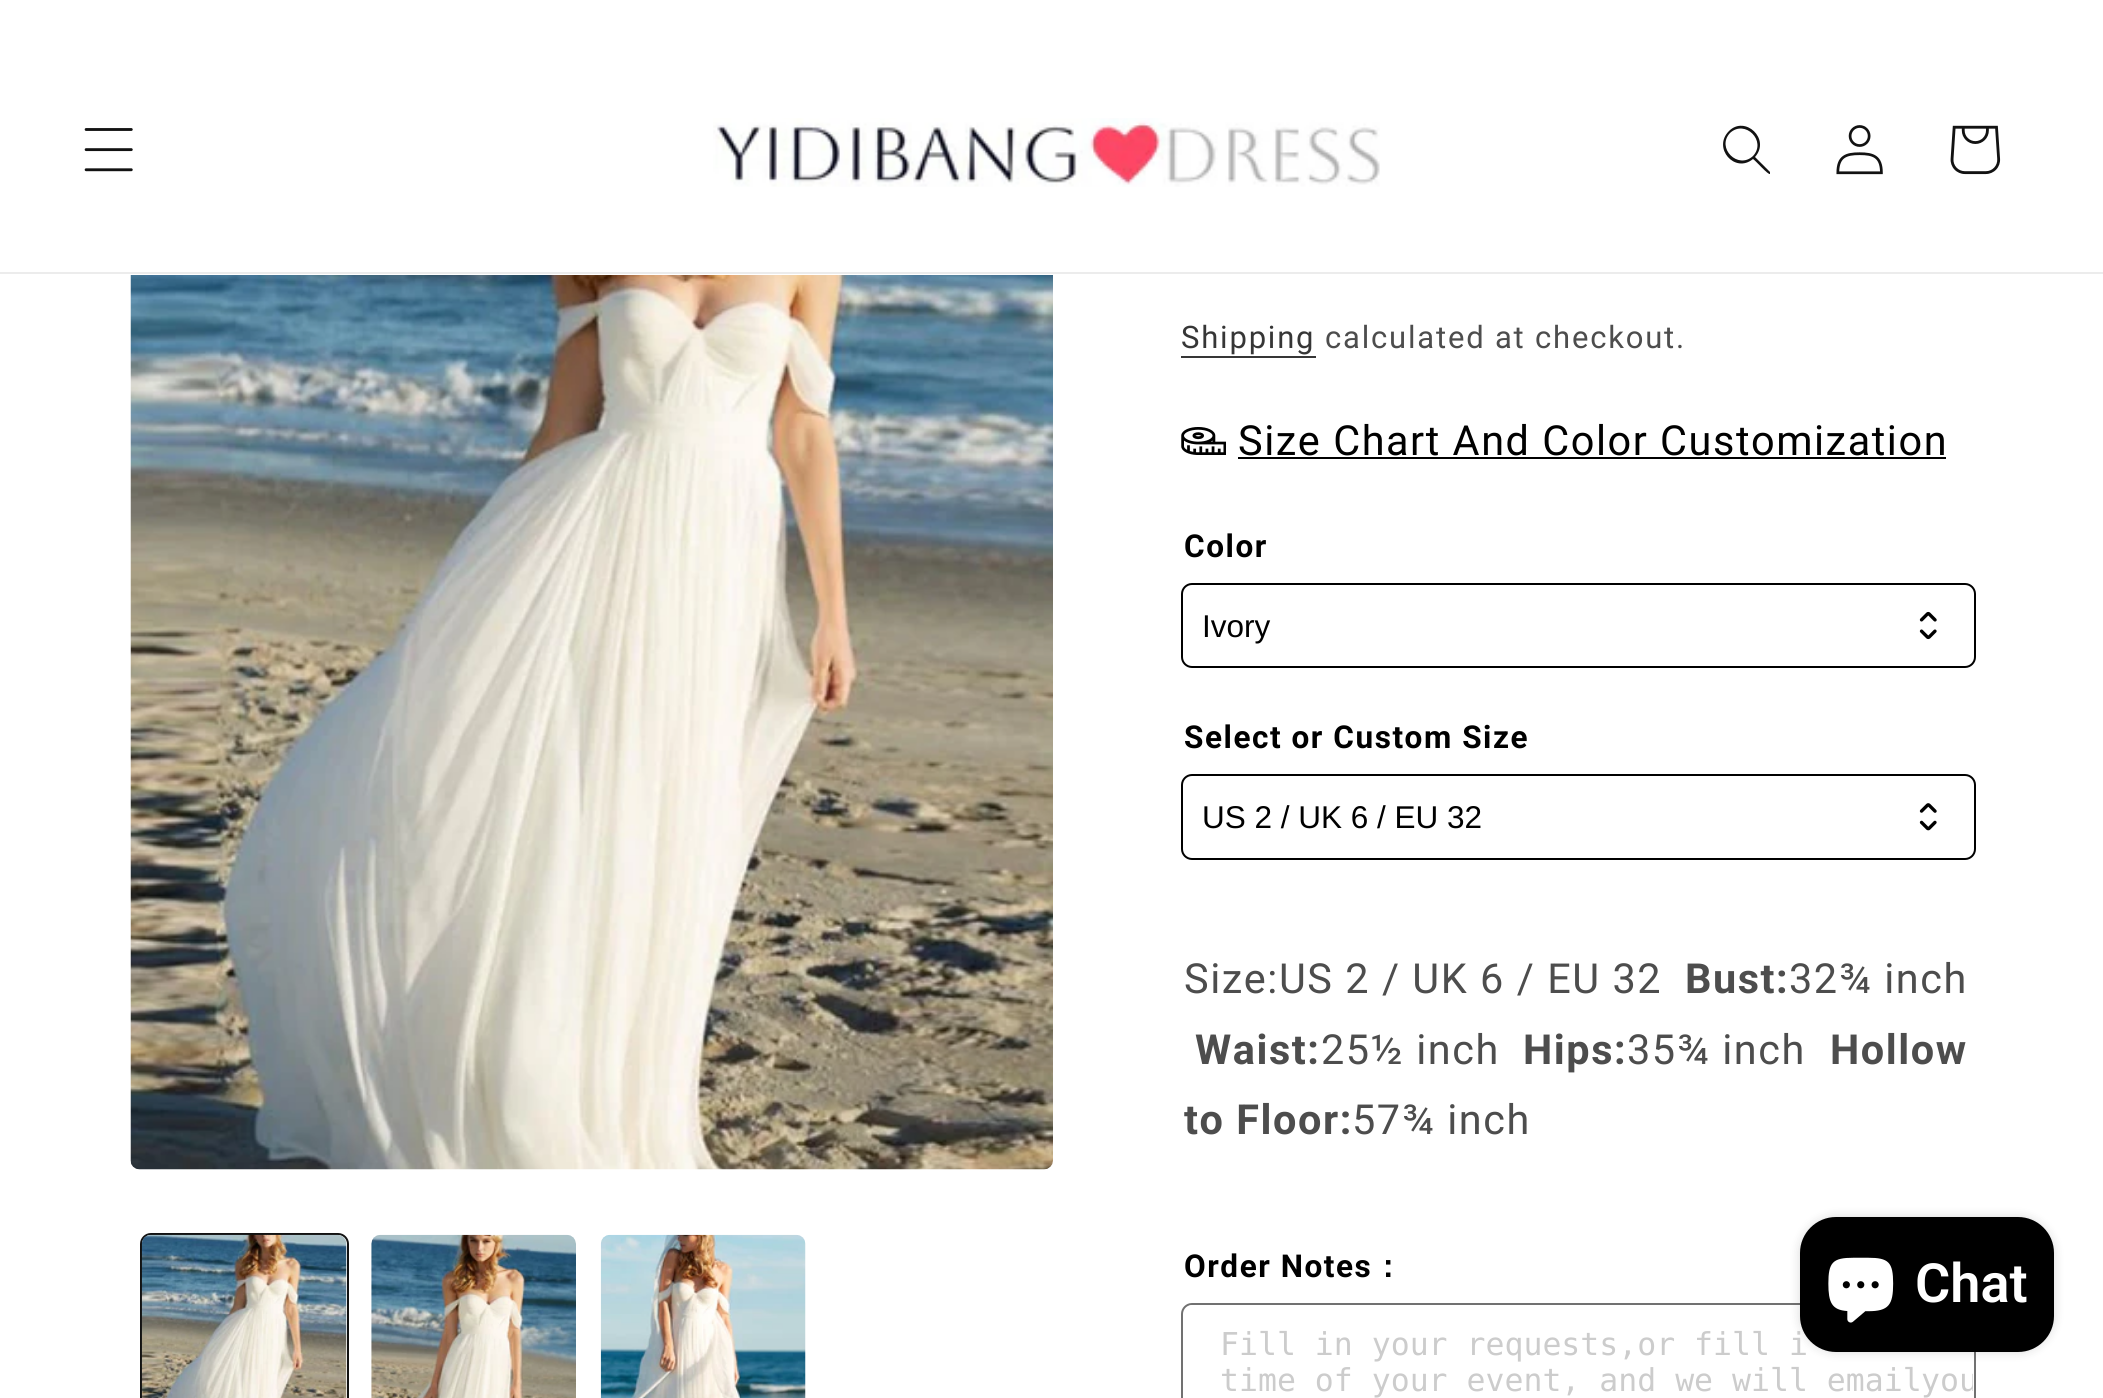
#include <cairo/cairo.h>
#include <math.h>
#include <stddef.h>

static cairo_t *cr;

static void rgb(unsigned color)
{
	cairo_set_source_rgb(cr, (color >> 16) / 255.0, (color >> 8 & 255) / 255.0, (color & 255) / 255.0);
}

static void tracked(double x, double y, const char *s, double letter, double word)
{
	cairo_move_to(cr, x, y);
	while (*s) {
		char ch[5] = {0};
		int n = 0;
		do ch[n++] = *s++; while ((*s & 0xC0) == 0x80);
		cairo_show_text(cr, ch);
		cairo_rel_move_to(cr, letter + word * (*ch == ' '), 0);
	}
}

static void rrect(double x, double y, double w, double h, double r)
{
	cairo_new_sub_path(cr);
	cairo_arc(cr, x + w - r, y + h - r, r, 0, M_PI / 2);
	cairo_arc(cr, x + r, y + h - r, r, M_PI / 2, M_PI);
	cairo_arc(cr, x + r, y + r, r, M_PI, 1.5 * M_PI);
	cairo_arc(cr, x + w - r, y + r, r, 1.5 * M_PI, 2 * M_PI);
	cairo_close_path(cr);
}

static void soft_shadow(double x, double y, double w, double h, double r, double blur, double alpha)
{
	cairo_push_group_with_content(cr, CAIRO_CONTENT_ALPHA);
	cairo_set_operator(cr, CAIRO_OPERATOR_SOURCE);
	for (int i = 15; i >= -15 && fmin(w, h) + blur * i / 3 > 0; i -= 2) {
		double e = blur * i / 6;
		cairo_set_source_rgba(cr, 0, 0, 0, alpha * erfc((i - 1) / 8.5) / 2);
		rrect(x - e, y - e, w + 2 * e, h + 2 * e, fmax(0, fmin(r + e + blur * .6, fmin(w, h) / 2 + e)));
		cairo_fill(cr);
	}
	cairo_pattern_t *soft = cairo_pop_group(cr);
	cairo_mask(cr, soft);
	cairo_pattern_destroy(soft);
}

static void image(const char *path, double x, double y, double w, double h)
{
	cairo_surface_t *image = cairo_image_surface_create_from_png(path);
	cairo_save(cr);
	cairo_set_source_surface(cr, image, x, y);
	cairo_rectangle(cr, x, y, w, h);
	cairo_fill(cr);
	cairo_restore(cr);
	cairo_surface_destroy(image);
}

int main(void) {
	cairo_surface_t *surface = cairo_image_surface_create(CAIRO_FORMAT_RGB24, 2103, 1398);
	cr = cairo_create(surface);
	cairo_font_options_t *options = cairo_font_options_create();
	cairo_font_options_set_hint_metrics(options, CAIRO_HINT_METRICS_OFF);
	cairo_font_options_set_hint_style(options, CAIRO_HINT_STYLE_NONE);
	cairo_set_font_options(cr, options);
	cairo_set_miter_limit(cr, 4);
	rgb(0xffffff);
	cairo_paint(cr);
	rgb(0xececec);
	cairo_rectangle(cr, 0, 272, 2103, 2);
	cairo_fill(cr);
	image("img/1.png", 84, 128, 49, 44);
	image("img/2.png", 713, 118, 667, 69);
	rgb(0x121212);
	cairo_set_fill_rule(cr, CAIRO_FILL_RULE_EVEN_ODD);
	cairo_new_path(cr);
	cairo_move_to(cr, 1753, 156);
	cairo_curve_to(cr, 1738, 170, 1716, 148, 1730, 133);
	cairo_curve_to(cr, 1745, 119, 1767, 141, 1753, 156);
	cairo_close_path(cr);
	cairo_move_to(cr, 1753, 159);
	cairo_curve_to(cr, 1735, 174, 1712, 148, 1729, 131);
	cairo_curve_to(cr, 1745, 115, 1771, 139, 1755, 157);
	cairo_line_to(cr, 1770, 172);
	cairo_line_to(cr, 1770, 174);
	cairo_curve_to(cr, 1768, 175, 1756, 161, 1753, 159);
	cairo_close_path(cr);
	cairo_fill(cr);
	image("img/3.png", 1836, 125, 47, 50);
	image("img/4.png", 1950, 125, 51, 50);
	image("img/5.png", 130, 275, 923, 895);
	rrect(141, 1234, 207, 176, 10);
	cairo_stroke(cr);
	image("img/6.png", 141, 1234, 206, 164);
	image("img/7.png", 371, 1234, 205, 164);
	image("img/8.png", 600, 1234, 206, 164);
	rgb(0x363636);
	cairo_rectangle(cr, 1181, 356, 135, 2);
	cairo_fill(cr);
	image("img/9.png", 1181, 427, 45, 28);
	rgb(0x000000);
	cairo_rectangle(cr, 1238, 457, 708, 2);
	cairo_fill(cr);
	rrect(1182, 584, 793, 83, 10);
	cairo_stroke(cr);
	image("img/10.png", 1919, 611, 18, 29);
	rrect(1182, 775, 793, 84, 10);
	cairo_stroke(cr);
	image("img/11.png", 1919, 803, 18, 28);
	rrect(1182, 1304, 793, 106, 10);
	rgb(0x717171);
	cairo_stroke(cr);
	rgb(0xffffff);
	rrect(1184, 1305, 789, 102, 9);
	cairo_fill(cr);
	rgb(0x000000);
	soft_shadow(1800, 1217, 254, 135, 36, 5.5, 0.15);
	cairo_select_font_face(cr, "Roboto", CAIRO_FONT_SLANT_NORMAL, CAIRO_FONT_WEIGHT_NORMAL);
	cairo_set_font_size(cr, 31);
	rgb(0x363636);
	tracked(1181, 348, "Shipping", 1.8, 0);
	rgb(0x4d4d4d);
	tracked(1325, 348, "calculated at checkout.", 1.8, 0);
	cairo_set_font_size(cr, 41.4);
	rgb(0x000000);
	tracked(1238, 455, "Size Chart And Color Customization", 1.55, 0);
	cairo_select_font_face(cr, "Roboto", CAIRO_FONT_SLANT_NORMAL, CAIRO_FONT_WEIGHT_BOLD);
	cairo_set_font_size(cr, 31.5);
	tracked(1184, 557, "Color", 1.55, 0);
	cairo_select_font_face(cr, "Liberation Sans", CAIRO_FONT_SLANT_NORMAL, CAIRO_FONT_WEIGHT_NORMAL);
	cairo_move_to(cr, 1202, 637);
	cairo_show_text(cr, "Ivory");
	cairo_select_font_face(cr, "Roboto", CAIRO_FONT_SLANT_NORMAL, CAIRO_FONT_WEIGHT_BOLD);
	tracked(1184, 748, "Select or Custom Size", 1.55, 0);
	cairo_select_font_face(cr, "Liberation Sans", CAIRO_FONT_SLANT_NORMAL, CAIRO_FONT_WEIGHT_NORMAL);
	cairo_move_to(cr, 1202, 828);
	cairo_show_text(cr, "US 2 / UK 6 / EU 32");
	cairo_select_font_face(cr, "Roboto", CAIRO_FONT_SLANT_NORMAL, CAIRO_FONT_WEIGHT_NORMAL);
	cairo_set_font_size(cr, 41.4);
	rgb(0x4d4d4d);
	tracked(1184, 993, "Size:US 2 / UK 6 / EU 32", 1.55, 0);
	cairo_select_font_face(cr, "Roboto", CAIRO_FONT_SLANT_NORMAL, CAIRO_FONT_WEIGHT_BOLD);
	tracked(1685, 993, "Bust:", 1.55, 0);
	cairo_select_font_face(cr, "Roboto", CAIRO_FONT_SLANT_NORMAL, CAIRO_FONT_WEIGHT_NORMAL);
	tracked(1789, 993, "32¾ inch", 1.55, 0);
	cairo_select_font_face(cr, "Roboto", CAIRO_FONT_SLANT_NORMAL, CAIRO_FONT_WEIGHT_BOLD);
	tracked(1195, 1064, "Waist:", 1.55, 0);
	cairo_select_font_face(cr, "Roboto", CAIRO_FONT_SLANT_NORMAL, CAIRO_FONT_WEIGHT_NORMAL);
	tracked(1321, 1064, "25½ inch", 1.55, 0);
	cairo_select_font_face(cr, "Roboto", CAIRO_FONT_SLANT_NORMAL, CAIRO_FONT_WEIGHT_BOLD);
	tracked(1523, 1064, "Hips:", 1.55, 0);
	cairo_select_font_face(cr, "Roboto", CAIRO_FONT_SLANT_NORMAL, CAIRO_FONT_WEIGHT_NORMAL);
	tracked(1627, 1064, "35¾ inch", 1.55, 0);
	cairo_select_font_face(cr, "Roboto", CAIRO_FONT_SLANT_NORMAL, CAIRO_FONT_WEIGHT_BOLD);
	tracked(1830, 1064, "Hollow", 1.55, 0);
	tracked(1184, 1134, "to Floor:", 1.55, 0);
	cairo_select_font_face(cr, "Roboto", CAIRO_FONT_SLANT_NORMAL, CAIRO_FONT_WEIGHT_NORMAL);
	tracked(1352, 1134, "57¾ inch", 1.55, 0);
	cairo_select_font_face(cr, "Roboto", CAIRO_FONT_SLANT_NORMAL, CAIRO_FONT_WEIGHT_BOLD);
	cairo_set_font_size(cr, 31.5);
	rgb(0x000000);
	tracked(1184, 1277, "Order Notes", 1.55, 0);
	cairo_select_font_face(cr, "WenQuanYi Zen Hei", CAIRO_FONT_SLANT_NORMAL, CAIRO_FONT_WEIGHT_BOLD);
	tracked(1372, 1277, "：", 1.55, 0);
	cairo_select_font_face(cr, "DejaVu Sans Mono", CAIRO_FONT_SLANT_NORMAL, CAIRO_FONT_WEIGHT_NORMAL);
	rgb(0xcccccc);
	cairo_move_to(cr, 1220, 1355);
	cairo_show_text(cr, "Fill in your requests,or fill i");
	cairo_move_to(cr, 1220, 1391);
	cairo_show_text(cr, "time of your event, and we will email");
	cairo_save(cr);
	cairo_set_fill_rule(cr, CAIRO_FILL_RULE_WINDING);
	rrect(1184, 1305, 789, 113, 9);
	cairo_clip(cr);
	cairo_move_to(cr, 1921, 1391);
	cairo_show_text(cr, "you");
	cairo_restore(cr);
	rgb(0x000000);
	rrect(1800, 1217, 254, 135, 36);
	cairo_fill(cr);
	image("img/12.png", 1828, 1257, 66, 66);
	cairo_select_font_face(cr, "Roboto SemiBold", CAIRO_FONT_SLANT_NORMAL, CAIRO_FONT_WEIGHT_NORMAL);
	cairo_set_font_size(cr, 54);
	rgb(0xffffff);
	cairo_move_to(cr, 1915, 1302);
	cairo_show_text(cr, "Chat");
	cairo_surface_write_to_png(surface, "page.png");
	cairo_font_options_destroy(options);
	cairo_destroy(cr);
	cairo_surface_destroy(surface);
	return 0;
}
